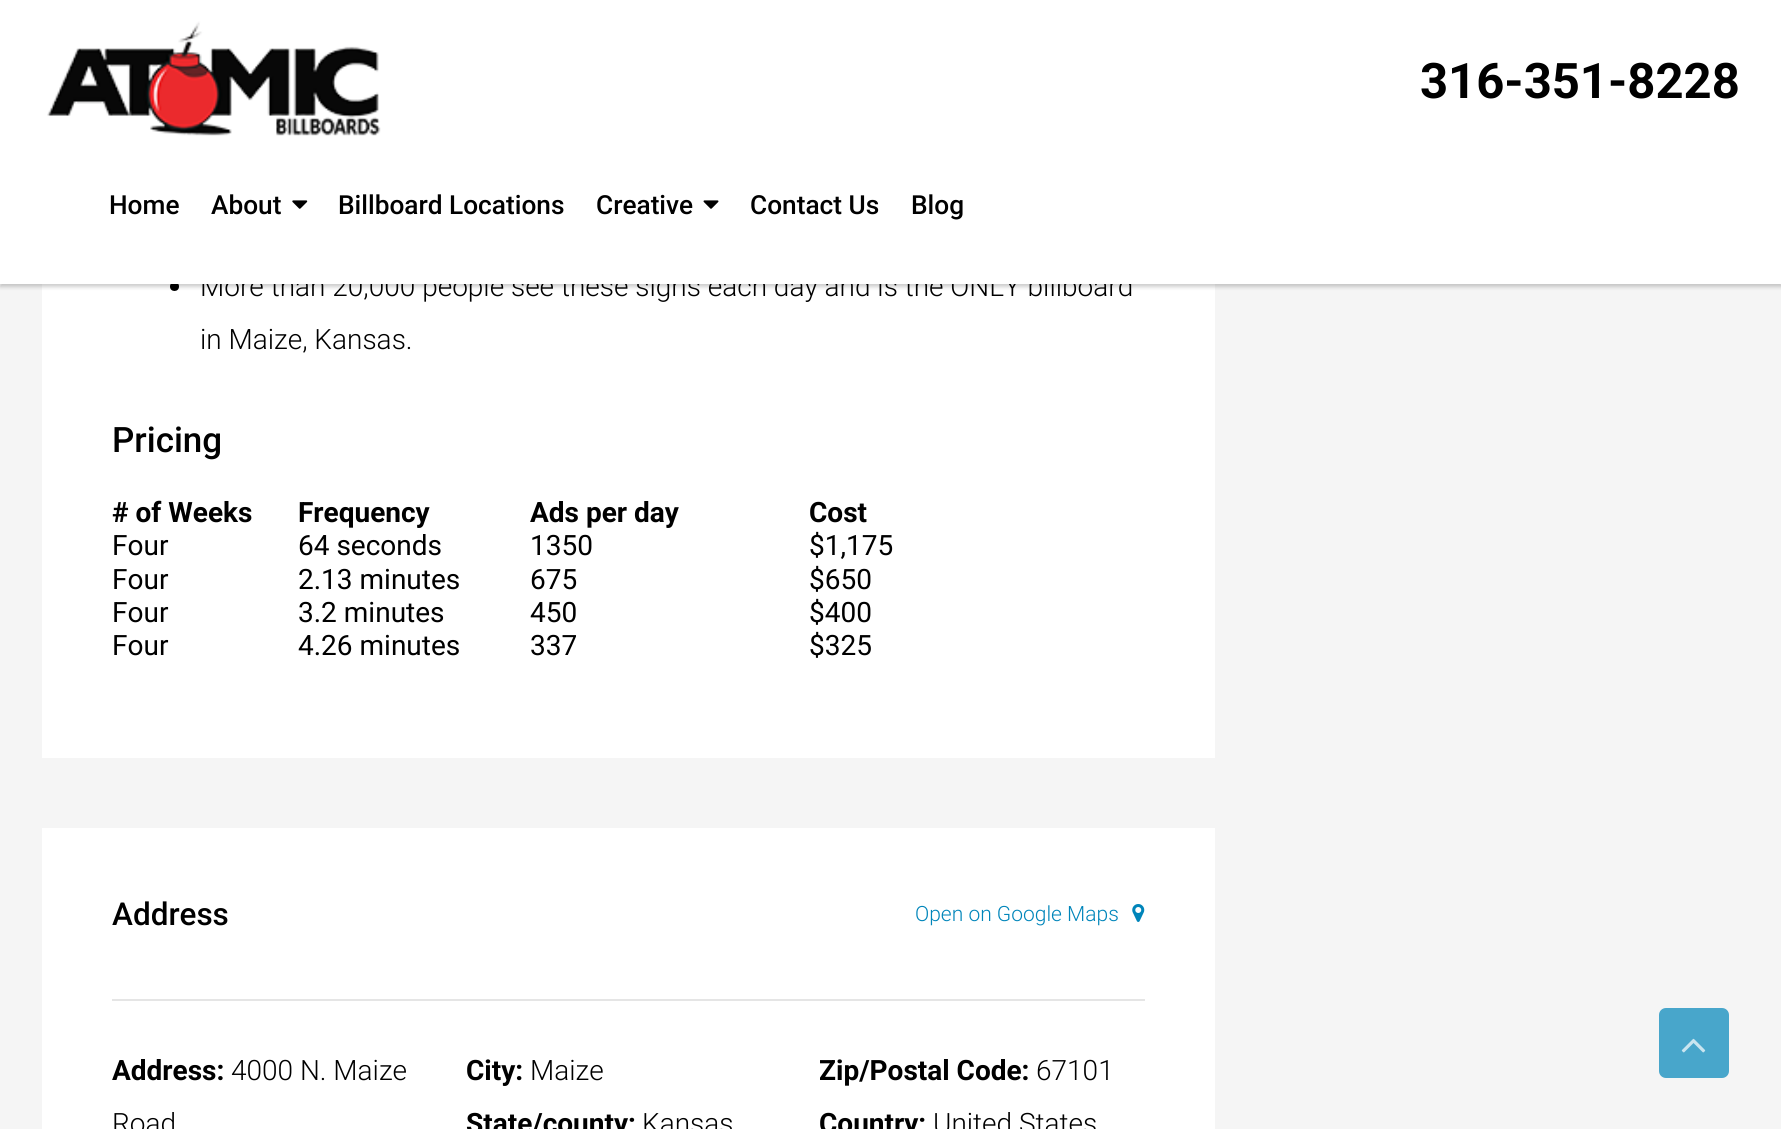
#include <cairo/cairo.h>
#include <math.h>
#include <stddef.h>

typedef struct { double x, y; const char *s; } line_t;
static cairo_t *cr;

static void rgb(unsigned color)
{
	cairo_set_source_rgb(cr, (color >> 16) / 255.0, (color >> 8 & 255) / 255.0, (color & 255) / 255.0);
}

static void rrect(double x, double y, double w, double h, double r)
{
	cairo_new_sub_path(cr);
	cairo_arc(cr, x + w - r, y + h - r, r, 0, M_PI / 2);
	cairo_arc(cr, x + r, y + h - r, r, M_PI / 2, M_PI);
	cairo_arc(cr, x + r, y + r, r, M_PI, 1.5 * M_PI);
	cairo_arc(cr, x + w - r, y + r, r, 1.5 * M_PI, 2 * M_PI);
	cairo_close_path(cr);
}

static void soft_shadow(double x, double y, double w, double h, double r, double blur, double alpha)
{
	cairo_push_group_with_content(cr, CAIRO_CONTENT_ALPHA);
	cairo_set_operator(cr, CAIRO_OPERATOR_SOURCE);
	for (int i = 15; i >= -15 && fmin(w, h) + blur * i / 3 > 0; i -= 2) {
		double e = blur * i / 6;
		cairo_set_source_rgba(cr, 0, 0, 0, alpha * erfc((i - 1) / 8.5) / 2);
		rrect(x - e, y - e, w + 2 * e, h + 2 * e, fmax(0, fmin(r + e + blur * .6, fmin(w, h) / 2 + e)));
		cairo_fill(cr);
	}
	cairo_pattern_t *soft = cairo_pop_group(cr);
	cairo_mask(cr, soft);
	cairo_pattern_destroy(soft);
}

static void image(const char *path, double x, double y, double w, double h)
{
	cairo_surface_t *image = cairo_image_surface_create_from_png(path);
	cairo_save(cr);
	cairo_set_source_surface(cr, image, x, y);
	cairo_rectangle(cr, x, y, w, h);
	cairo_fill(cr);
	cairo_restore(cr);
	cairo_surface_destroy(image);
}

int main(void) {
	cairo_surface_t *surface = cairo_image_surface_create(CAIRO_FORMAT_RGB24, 1781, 1129);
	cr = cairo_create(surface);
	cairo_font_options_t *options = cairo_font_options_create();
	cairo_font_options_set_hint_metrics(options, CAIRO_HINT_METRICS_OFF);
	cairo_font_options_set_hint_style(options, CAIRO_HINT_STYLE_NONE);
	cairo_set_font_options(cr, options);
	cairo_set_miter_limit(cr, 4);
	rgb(0xf5f5f5);
	cairo_paint(cr);
	rgb(0xffffff);
	cairo_rectangle(cr, 42, 284, 1173, 474);
	cairo_fill(cr);
	rgb(0x000000);
	cairo_arc(cr, 174.5, 286.5, 4.5, 0, 2 * M_PI);
	cairo_fill(cr);
	rgb(0x000000);
	soft_shadow(0, 4, 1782, 283, 0, 2, 0.2);
	rgb(0xffffff);
	cairo_rectangle(cr, 42, 828, 1173, 301);
	cairo_fill(cr);
	rgb(0xe5e5e5);
	cairo_rectangle(cr, 112, 999, 1033, 2);
	cairo_fill(cr);
	image("img/4.png", 1132, 904, 13, 18);
	rgb(0x48a6cb);
	rrect(1659, 1008, 70, 70, 7);
	cairo_fill(cr);
	image("img/5.png", 1681, 1038, 25, 15);
	cairo_select_font_face(cr, "Roboto Light", CAIRO_FONT_SLANT_NORMAL, CAIRO_FONT_WEIGHT_NORMAL);
	cairo_set_font_size(cr, 28);
	rgb(0x000000);
	cairo_move_to(cr, 200, 296);
	cairo_show_text(cr, "More than 20,000 people see these signs each day and is the ONLY billboard");
	rgb(0xffffff);
	cairo_rectangle(cr, 0, 0, 1781, 284);
	cairo_fill(cr);
	cairo_select_font_face(cr, "Roboto Medium", CAIRO_FONT_SLANT_NORMAL, CAIRO_FONT_WEIGHT_NORMAL);
	cairo_set_font_size(cr, 26.25);
	rgb(0x000000);
	{
		static const line_t items[] = {
			{911, 214, "Blog"},
			{750, 214, "Contact Us"},
			{596, 214, "Creative"},
		};
		for (size_t i = 0; i < sizeof items / sizeof *items; i++) {
			cairo_move_to(cr, items[i].x, items[i].y);
			cairo_show_text(cr, items[i].s);
		}
	}
	image("img/3.png", 703, 200, 16, 9);
	cairo_move_to(cr, 338, 214);
	cairo_show_text(cr, "Billboard Locations");
	cairo_move_to(cr, 211, 214);
	cairo_show_text(cr, "About");
	image("img/2.png", 292, 200, 16, 9);
	cairo_move_to(cr, 109, 214);
	cairo_show_text(cr, "Home");
	cairo_select_font_face(cr, "Roboto", CAIRO_FONT_SLANT_NORMAL, CAIRO_FONT_WEIGHT_BOLD);
	cairo_set_font_size(cr, 49);
	cairo_move_to(cr, 1420, 98);
	cairo_show_text(cr, "316-351-8228");
	image("img/1.png", 47, 21, 334, 115);
	cairo_select_font_face(cr, "Roboto Light", CAIRO_FONT_SLANT_NORMAL, CAIRO_FONT_WEIGHT_NORMAL);
	cairo_set_font_size(cr, 28);
	cairo_move_to(cr, 200, 349);
	cairo_show_text(cr, "in Maize, Kansas.");
	cairo_select_font_face(cr, "Roboto Medium", CAIRO_FONT_SLANT_NORMAL, CAIRO_FONT_WEIGHT_NORMAL);
	cairo_set_font_size(cr, 35);
	cairo_move_to(cr, 112, 452);
	cairo_show_text(cr, "Pricing");
	cairo_select_font_face(cr, "Roboto", CAIRO_FONT_SLANT_NORMAL, CAIRO_FONT_WEIGHT_BOLD);
	cairo_set_font_size(cr, 28);
	{
		static const line_t items[] = {
			{112, 522, "# of Weeks"},
			{298, 522, "Frequency"},
			{530, 522, "Ads per day"},
			{809, 522, "Cost"},
		};
		for (size_t i = 0; i < sizeof items / sizeof *items; i++) {
			cairo_move_to(cr, items[i].x, items[i].y);
			cairo_show_text(cr, items[i].s);
		}
	}
	cairo_select_font_face(cr, "Roboto", CAIRO_FONT_SLANT_NORMAL, CAIRO_FONT_WEIGHT_NORMAL);
	{
		static const line_t items[] = {
			{112, 555, "Four"},
			{298, 555, "64 seconds"},
			{530, 555, "1350"},
			{809, 555, "$1,175"},
			{112, 589, "Four"},
			{298, 589, "2.13 minutes"},
			{530, 589, "675"},
			{809, 589, "$650"},
			{112, 622, "Four"},
			{298, 622, "3.2 minutes"},
			{530, 622, "450"},
			{809, 622, "$400"},
			{112, 655, "Four"},
			{298, 655, "4.26 minutes"},
			{530, 655, "337"},
			{809, 655, "$325"},
		};
		for (size_t i = 0; i < sizeof items / sizeof *items; i++) {
			cairo_move_to(cr, items[i].x, items[i].y);
			cairo_show_text(cr, items[i].s);
		}
	}
	cairo_select_font_face(cr, "Roboto Medium", CAIRO_FONT_SLANT_NORMAL, CAIRO_FONT_WEIGHT_NORMAL);
	cairo_set_font_size(cr, 31.5);
	cairo_move_to(cr, 112, 925);
	cairo_show_text(cr, "Address");
	cairo_select_font_face(cr, "Roboto Light", CAIRO_FONT_SLANT_NORMAL, CAIRO_FONT_WEIGHT_NORMAL);
	cairo_set_font_size(cr, 21);
	rgb(0x0085ba);
	cairo_move_to(cr, 915, 921);
	cairo_show_text(cr, "Open on Google Maps");
	cairo_select_font_face(cr, "Roboto", CAIRO_FONT_SLANT_NORMAL, CAIRO_FONT_WEIGHT_BOLD);
	cairo_set_font_size(cr, 28);
	rgb(0x000000);
	cairo_move_to(cr, 112, 1080);
	cairo_show_text(cr, "Address:");
	cairo_select_font_face(cr, "Roboto Light", CAIRO_FONT_SLANT_NORMAL, CAIRO_FONT_WEIGHT_NORMAL);
	cairo_move_to(cr, 231, 1080);
	cairo_show_text(cr, "4000 N. Maize");
	cairo_move_to(cr, 112, 1133);
	cairo_show_text(cr, "Road");
	cairo_select_font_face(cr, "Roboto", CAIRO_FONT_SLANT_NORMAL, CAIRO_FONT_WEIGHT_BOLD);
	cairo_move_to(cr, 466, 1080);
	cairo_show_text(cr, "City:");
	cairo_select_font_face(cr, "Roboto Light", CAIRO_FONT_SLANT_NORMAL, CAIRO_FONT_WEIGHT_NORMAL);
	cairo_move_to(cr, 530, 1080);
	cairo_show_text(cr, "Maize");
	cairo_select_font_face(cr, "Roboto", CAIRO_FONT_SLANT_NORMAL, CAIRO_FONT_WEIGHT_BOLD);
	cairo_move_to(cr, 819, 1080);
	cairo_show_text(cr, "Zip/Postal Code:");
	cairo_select_font_face(cr, "Roboto Light", CAIRO_FONT_SLANT_NORMAL, CAIRO_FONT_WEIGHT_NORMAL);
	cairo_move_to(cr, 1036, 1080);
	cairo_show_text(cr, "67101");
	cairo_select_font_face(cr, "Roboto", CAIRO_FONT_SLANT_NORMAL, CAIRO_FONT_WEIGHT_BOLD);
	cairo_move_to(cr, 466, 1133);
	cairo_show_text(cr, "State/county:");
	cairo_select_font_face(cr, "Roboto Light", CAIRO_FONT_SLANT_NORMAL, CAIRO_FONT_WEIGHT_NORMAL);
	cairo_move_to(cr, 642, 1133);
	cairo_show_text(cr, "Kansas");
	cairo_select_font_face(cr, "Roboto", CAIRO_FONT_SLANT_NORMAL, CAIRO_FONT_WEIGHT_BOLD);
	cairo_move_to(cr, 819, 1133);
	cairo_show_text(cr, "Country:");
	cairo_select_font_face(cr, "Roboto Light", CAIRO_FONT_SLANT_NORMAL, CAIRO_FONT_WEIGHT_NORMAL);
	cairo_move_to(cr, 933, 1133);
	cairo_show_text(cr, "United States");
	cairo_surface_write_to_png(surface, "page.png");
	cairo_font_options_destroy(options);
	cairo_destroy(cr);
	cairo_surface_destroy(surface);
	return 0;
}
